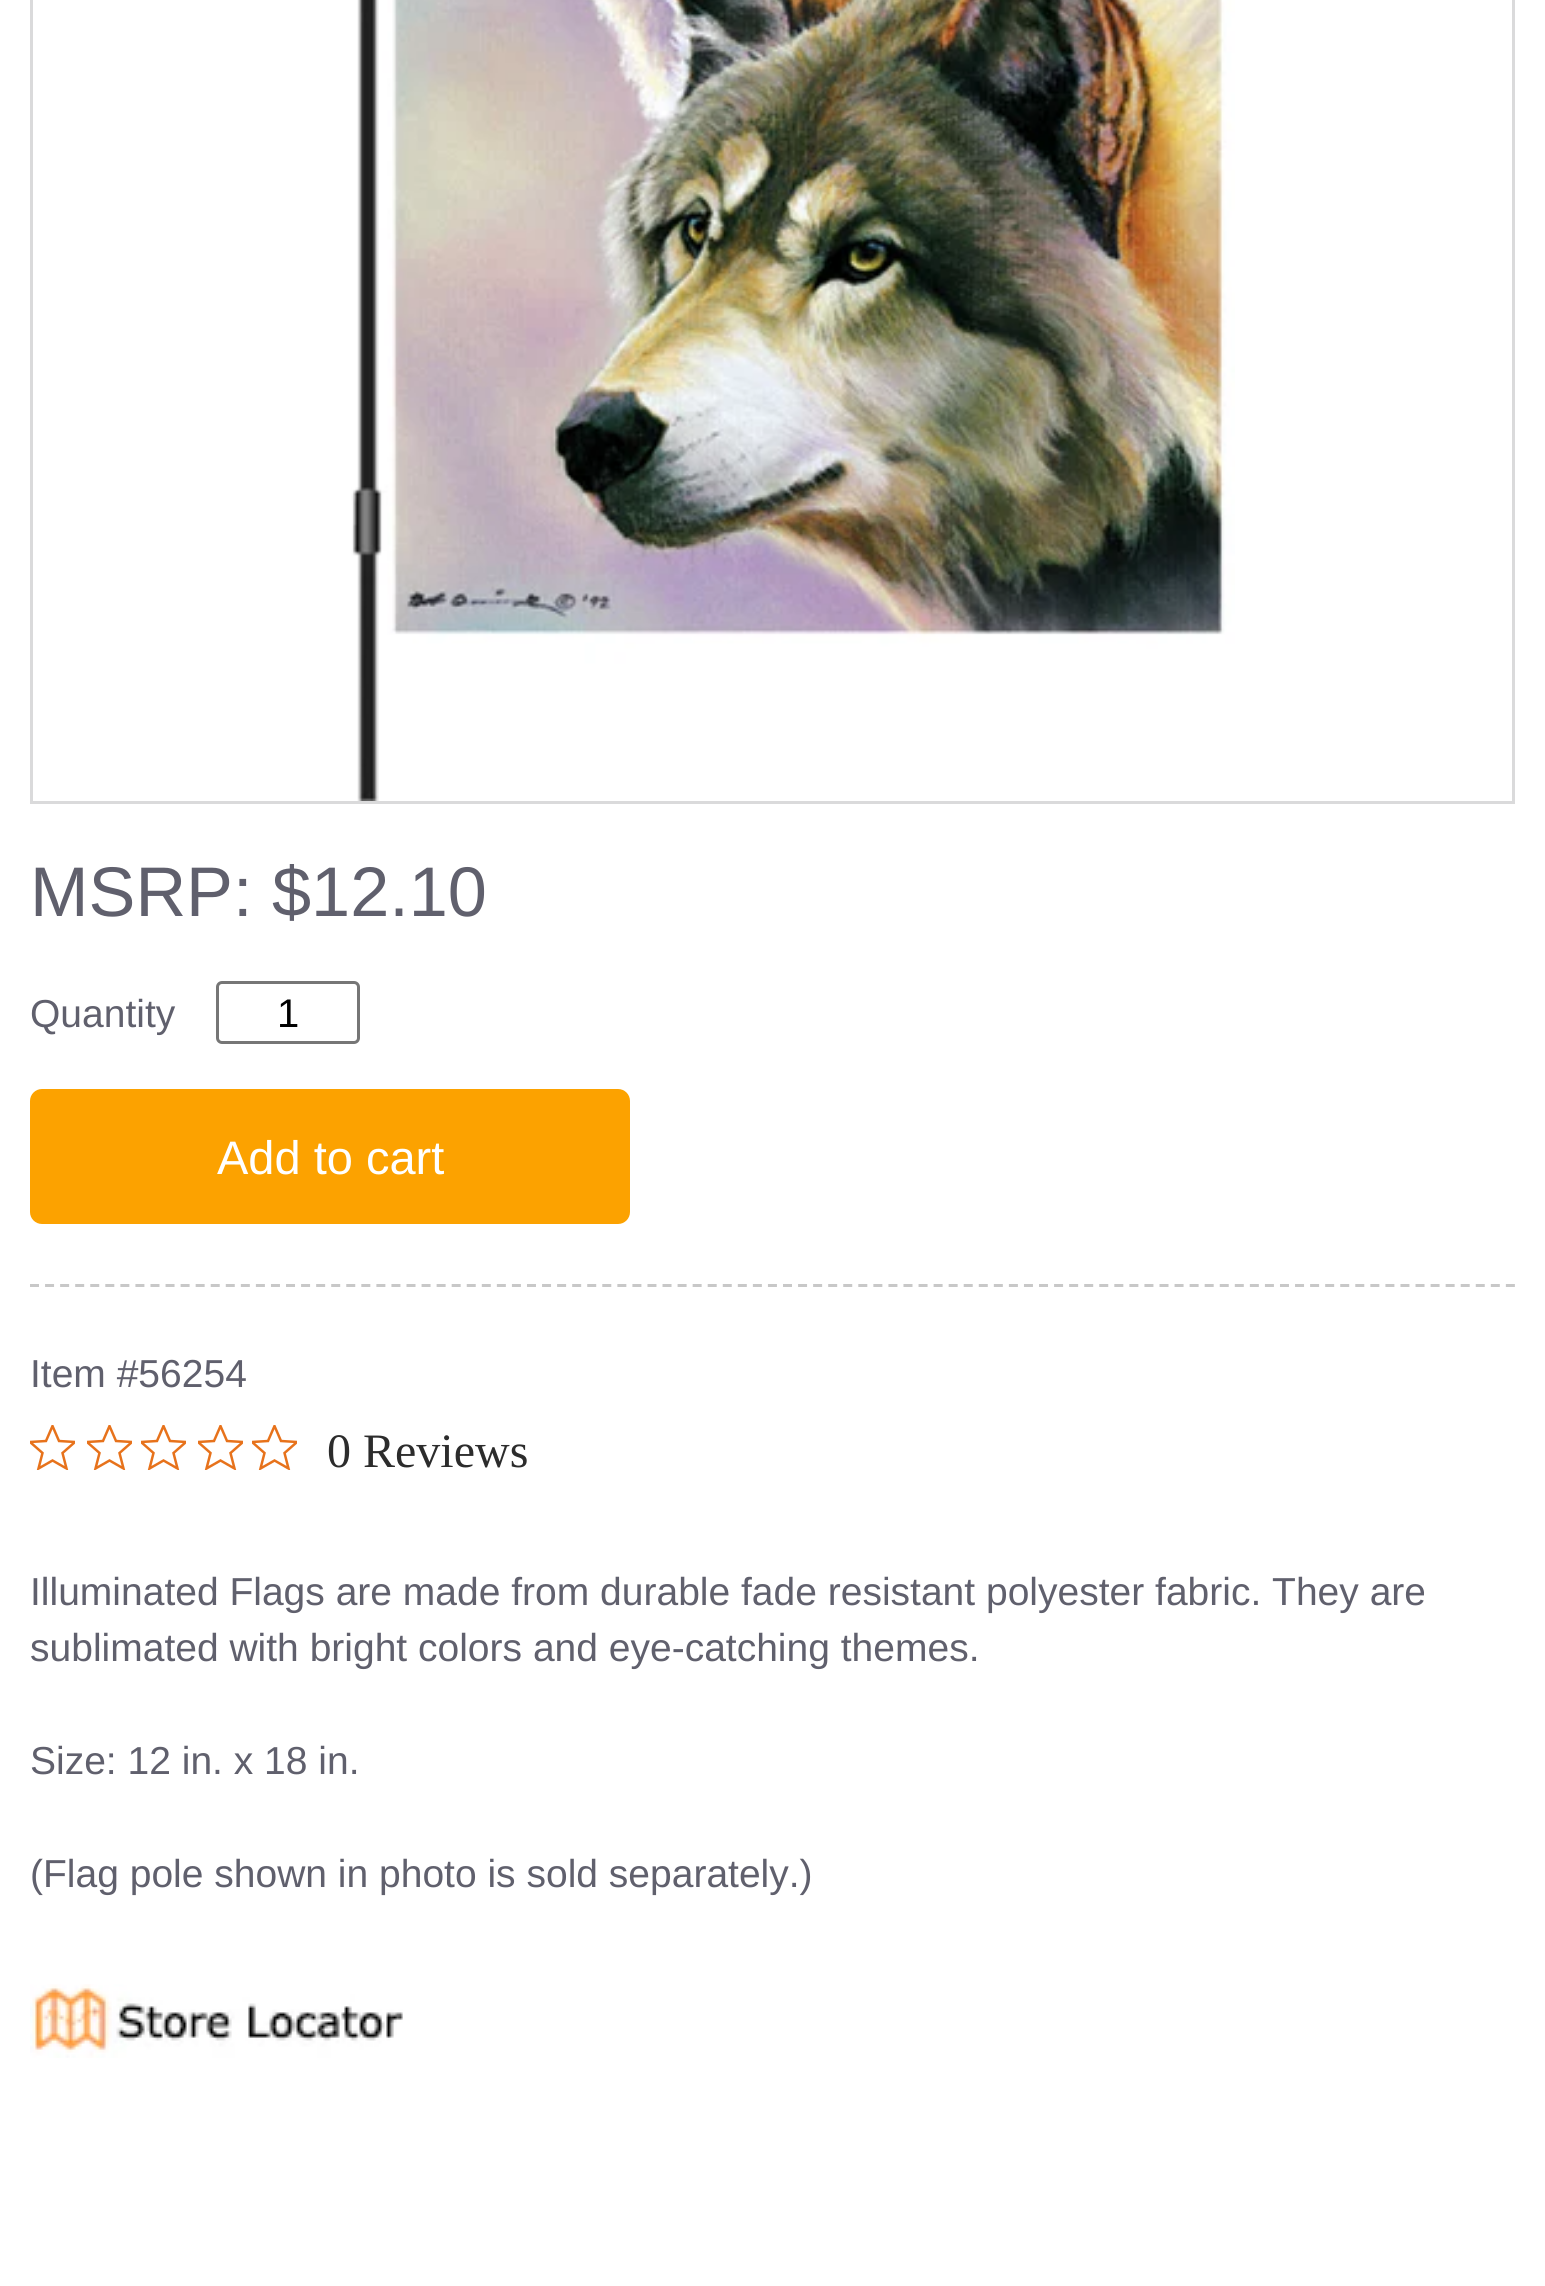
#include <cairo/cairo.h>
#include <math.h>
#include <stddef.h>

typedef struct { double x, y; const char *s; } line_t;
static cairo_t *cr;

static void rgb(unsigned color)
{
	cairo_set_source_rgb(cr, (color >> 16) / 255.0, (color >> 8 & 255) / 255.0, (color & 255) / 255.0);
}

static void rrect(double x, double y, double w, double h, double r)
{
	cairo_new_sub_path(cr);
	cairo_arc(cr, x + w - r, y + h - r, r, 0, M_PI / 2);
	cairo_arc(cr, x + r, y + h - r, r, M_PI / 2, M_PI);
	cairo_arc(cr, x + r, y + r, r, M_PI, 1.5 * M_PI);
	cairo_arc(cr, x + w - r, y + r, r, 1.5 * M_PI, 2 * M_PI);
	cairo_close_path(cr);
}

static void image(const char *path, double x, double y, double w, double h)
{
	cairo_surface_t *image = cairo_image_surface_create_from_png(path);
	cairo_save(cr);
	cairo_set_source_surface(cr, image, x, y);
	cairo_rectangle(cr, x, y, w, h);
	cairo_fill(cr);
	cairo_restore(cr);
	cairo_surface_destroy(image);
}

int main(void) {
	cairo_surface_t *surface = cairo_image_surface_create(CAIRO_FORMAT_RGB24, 1545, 2286);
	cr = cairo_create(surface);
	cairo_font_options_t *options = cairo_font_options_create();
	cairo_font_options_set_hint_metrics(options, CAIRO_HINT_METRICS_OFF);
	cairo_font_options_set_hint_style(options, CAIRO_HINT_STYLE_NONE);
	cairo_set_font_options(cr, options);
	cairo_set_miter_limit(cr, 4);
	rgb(0xffffff);
	cairo_paint(cr);
	cairo_rectangle(cr, 31.5, -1.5, 1482, 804);
	rgb(0xdadadb);
	cairo_set_line_width(cr, 3);
	cairo_stroke(cr);
	image("img/1.png", 351, 0, 884, 801);
	rrect(217.5, 982.5, 141, 60, 4.5);
	rgb(0x767676);
	cairo_stroke(cr);
	rgb(0xfca200);
	rrect(30, 1089, 600, 135, 12);
	cairo_fill(cr);
	cairo_new_path(cr);
	cairo_move_to(cr, 30, 1285.5);
	cairo_line_to(cr, 1515, 1285.5);
	rgb(0xc8c8c8);
	cairo_set_dash(cr, (double[]){9, 6.06}, 2, 0);
	cairo_stroke(cr);
	cairo_save(cr);
	cairo_rectangle(cr, 30, 1425, 45, 45);
	cairo_clip(cr);
	cairo_new_path(cr);
	cairo_move_to(cr, 52.5, 1460.5);
	cairo_line_to(cr, 66.5, 1468.5);
	cairo_line_to(cr, 62.5, 1453);
	cairo_line_to(cr, 75, 1442);
	cairo_line_to(cr, 59, 1441);
	cairo_line_to(cr, 52.5, 1426);
	cairo_line_to(cr, 46, 1441);
	cairo_line_to(cr, 30, 1442);
	cairo_line_to(cr, 42.5, 1453);
	cairo_line_to(cr, 38.5, 1468.5);
	cairo_close_path(cr);
	rgb(0xe7721b);
	cairo_set_line_width(cr, 2.5);
	cairo_set_dash(cr, NULL, 0, 0);
	cairo_stroke(cr);
	cairo_restore(cr);
	cairo_save(cr);
	cairo_rectangle(cr, 87, 1425, 45, 45);
	cairo_clip(cr);
	cairo_new_path(cr);
	cairo_move_to(cr, 109.5, 1460.5);
	cairo_line_to(cr, 123.5, 1468.5);
	cairo_line_to(cr, 119.5, 1453);
	cairo_line_to(cr, 132, 1442);
	cairo_line_to(cr, 116, 1441);
	cairo_line_to(cr, 109.5, 1426);
	cairo_line_to(cr, 103, 1441);
	cairo_line_to(cr, 87, 1442);
	cairo_line_to(cr, 99.5, 1453);
	cairo_line_to(cr, 95.5, 1468.5);
	cairo_close_path(cr);
	rgb(0xe7721b);
	cairo_set_line_width(cr, 2.5);
	cairo_set_dash(cr, NULL, 0, 0);
	cairo_stroke(cr);
	cairo_restore(cr);
	cairo_save(cr);
	cairo_rectangle(cr, 141, 1425, 45, 45);
	cairo_clip(cr);
	cairo_new_path(cr);
	cairo_move_to(cr, 163.5, 1460.5);
	cairo_line_to(cr, 177.5, 1468.5);
	cairo_line_to(cr, 173.5, 1453);
	cairo_line_to(cr, 186, 1442);
	cairo_line_to(cr, 170, 1441);
	cairo_line_to(cr, 163.5, 1426);
	cairo_line_to(cr, 157, 1441);
	cairo_line_to(cr, 141, 1442);
	cairo_line_to(cr, 153.5, 1453);
	cairo_line_to(cr, 149.5, 1468.5);
	cairo_close_path(cr);
	rgb(0xe7721b);
	cairo_set_line_width(cr, 2.5);
	cairo_set_dash(cr, NULL, 0, 0);
	cairo_stroke(cr);
	cairo_restore(cr);
	cairo_save(cr);
	cairo_rectangle(cr, 198, 1425, 45, 45);
	cairo_clip(cr);
	cairo_new_path(cr);
	cairo_move_to(cr, 220.5, 1460.5);
	cairo_line_to(cr, 234.5, 1468.5);
	cairo_line_to(cr, 230.5, 1453);
	cairo_line_to(cr, 243, 1442);
	cairo_line_to(cr, 227, 1441);
	cairo_line_to(cr, 220.5, 1426);
	cairo_line_to(cr, 214, 1441);
	cairo_line_to(cr, 198, 1442);
	cairo_line_to(cr, 210.5, 1453);
	cairo_line_to(cr, 206.5, 1468.5);
	cairo_close_path(cr);
	rgb(0xe7721b);
	cairo_set_line_width(cr, 2.5);
	cairo_set_dash(cr, NULL, 0, 0);
	cairo_stroke(cr);
	cairo_restore(cr);
	cairo_save(cr);
	cairo_rectangle(cr, 252, 1425, 45, 45);
	cairo_clip(cr);
	cairo_new_path(cr);
	cairo_move_to(cr, 274.5, 1460.5);
	cairo_line_to(cr, 288.5, 1468.5);
	cairo_line_to(cr, 284.5, 1453);
	cairo_line_to(cr, 297, 1442);
	cairo_line_to(cr, 281, 1441);
	cairo_line_to(cr, 274.5, 1426);
	cairo_line_to(cr, 268, 1441);
	cairo_line_to(cr, 252, 1442);
	cairo_line_to(cr, 264.5, 1453);
	cairo_line_to(cr, 260.5, 1468.5);
	cairo_close_path(cr);
	rgb(0xe7721b);
	cairo_set_line_width(cr, 2.5);
	cairo_set_dash(cr, NULL, 0, 0);
	cairo_stroke(cr);
	cairo_restore(cr);
	image("img/2.png", 30, 1984, 373, 74);
	cairo_select_font_face(cr, "Liberation Sans", CAIRO_FONT_SLANT_NORMAL, CAIRO_FONT_WEIGHT_NORMAL);
	cairo_set_font_size(cr, 70.25);
	rgb(0x60606d);
	cairo_move_to(cr, 30, 916);
	cairo_show_text(cr, "MSRP: $12.10");
	cairo_set_font_size(cr, 39);
	cairo_move_to(cr, 30, 1027);
	cairo_show_text(cr, "Quantity");
	cairo_set_font_size(cr, 40);
	rgb(0x000000);
	cairo_move_to(cr, 277, 1027);
	cairo_show_text(cr, "1");
	cairo_set_font_size(cr, 47);
	rgb(0xffffff);
	cairo_move_to(cr, 217, 1174);
	cairo_show_text(cr, "Add to cart");
	cairo_set_font_size(cr, 39);
	rgb(0x60606d);
	cairo_move_to(cr, 30, 1387);
	cairo_show_text(cr, "Item #56254");
	cairo_select_font_face(cr, "Liberation Serif", CAIRO_FONT_SLANT_NORMAL, CAIRO_FONT_WEIGHT_NORMAL);
	cairo_set_font_size(cr, 48);
	rgb(0x2c2c2c);
	cairo_move_to(cr, 327, 1467);
	cairo_show_text(cr, "0 Reviews");
	cairo_select_font_face(cr, "Liberation Sans", CAIRO_FONT_SLANT_NORMAL, CAIRO_FONT_WEIGHT_NORMAL);
	cairo_set_font_size(cr, 39);
	rgb(0x60606d);
	{
		static const line_t items[] = {
			{30, 1605, "Illuminated Flags are made from durable fade resistant polyester fabric. They are"},
			{30, 1661, "sublimated with bright colors and eye-catching themes."},
			{30, 1774, "Size: 12 in. x 18 in."},
			{30, 1887, "(Flag pole shown in photo is sold separately.)"},
		};
		for (size_t i = 0; i < sizeof items / sizeof *items; i++) {
			cairo_move_to(cr, items[i].x, items[i].y);
			cairo_show_text(cr, items[i].s);
		}
	}
	cairo_surface_write_to_png(surface, "page.png");
	cairo_font_options_destroy(options);
	cairo_destroy(cr);
	cairo_surface_destroy(surface);
	return 0;
}
